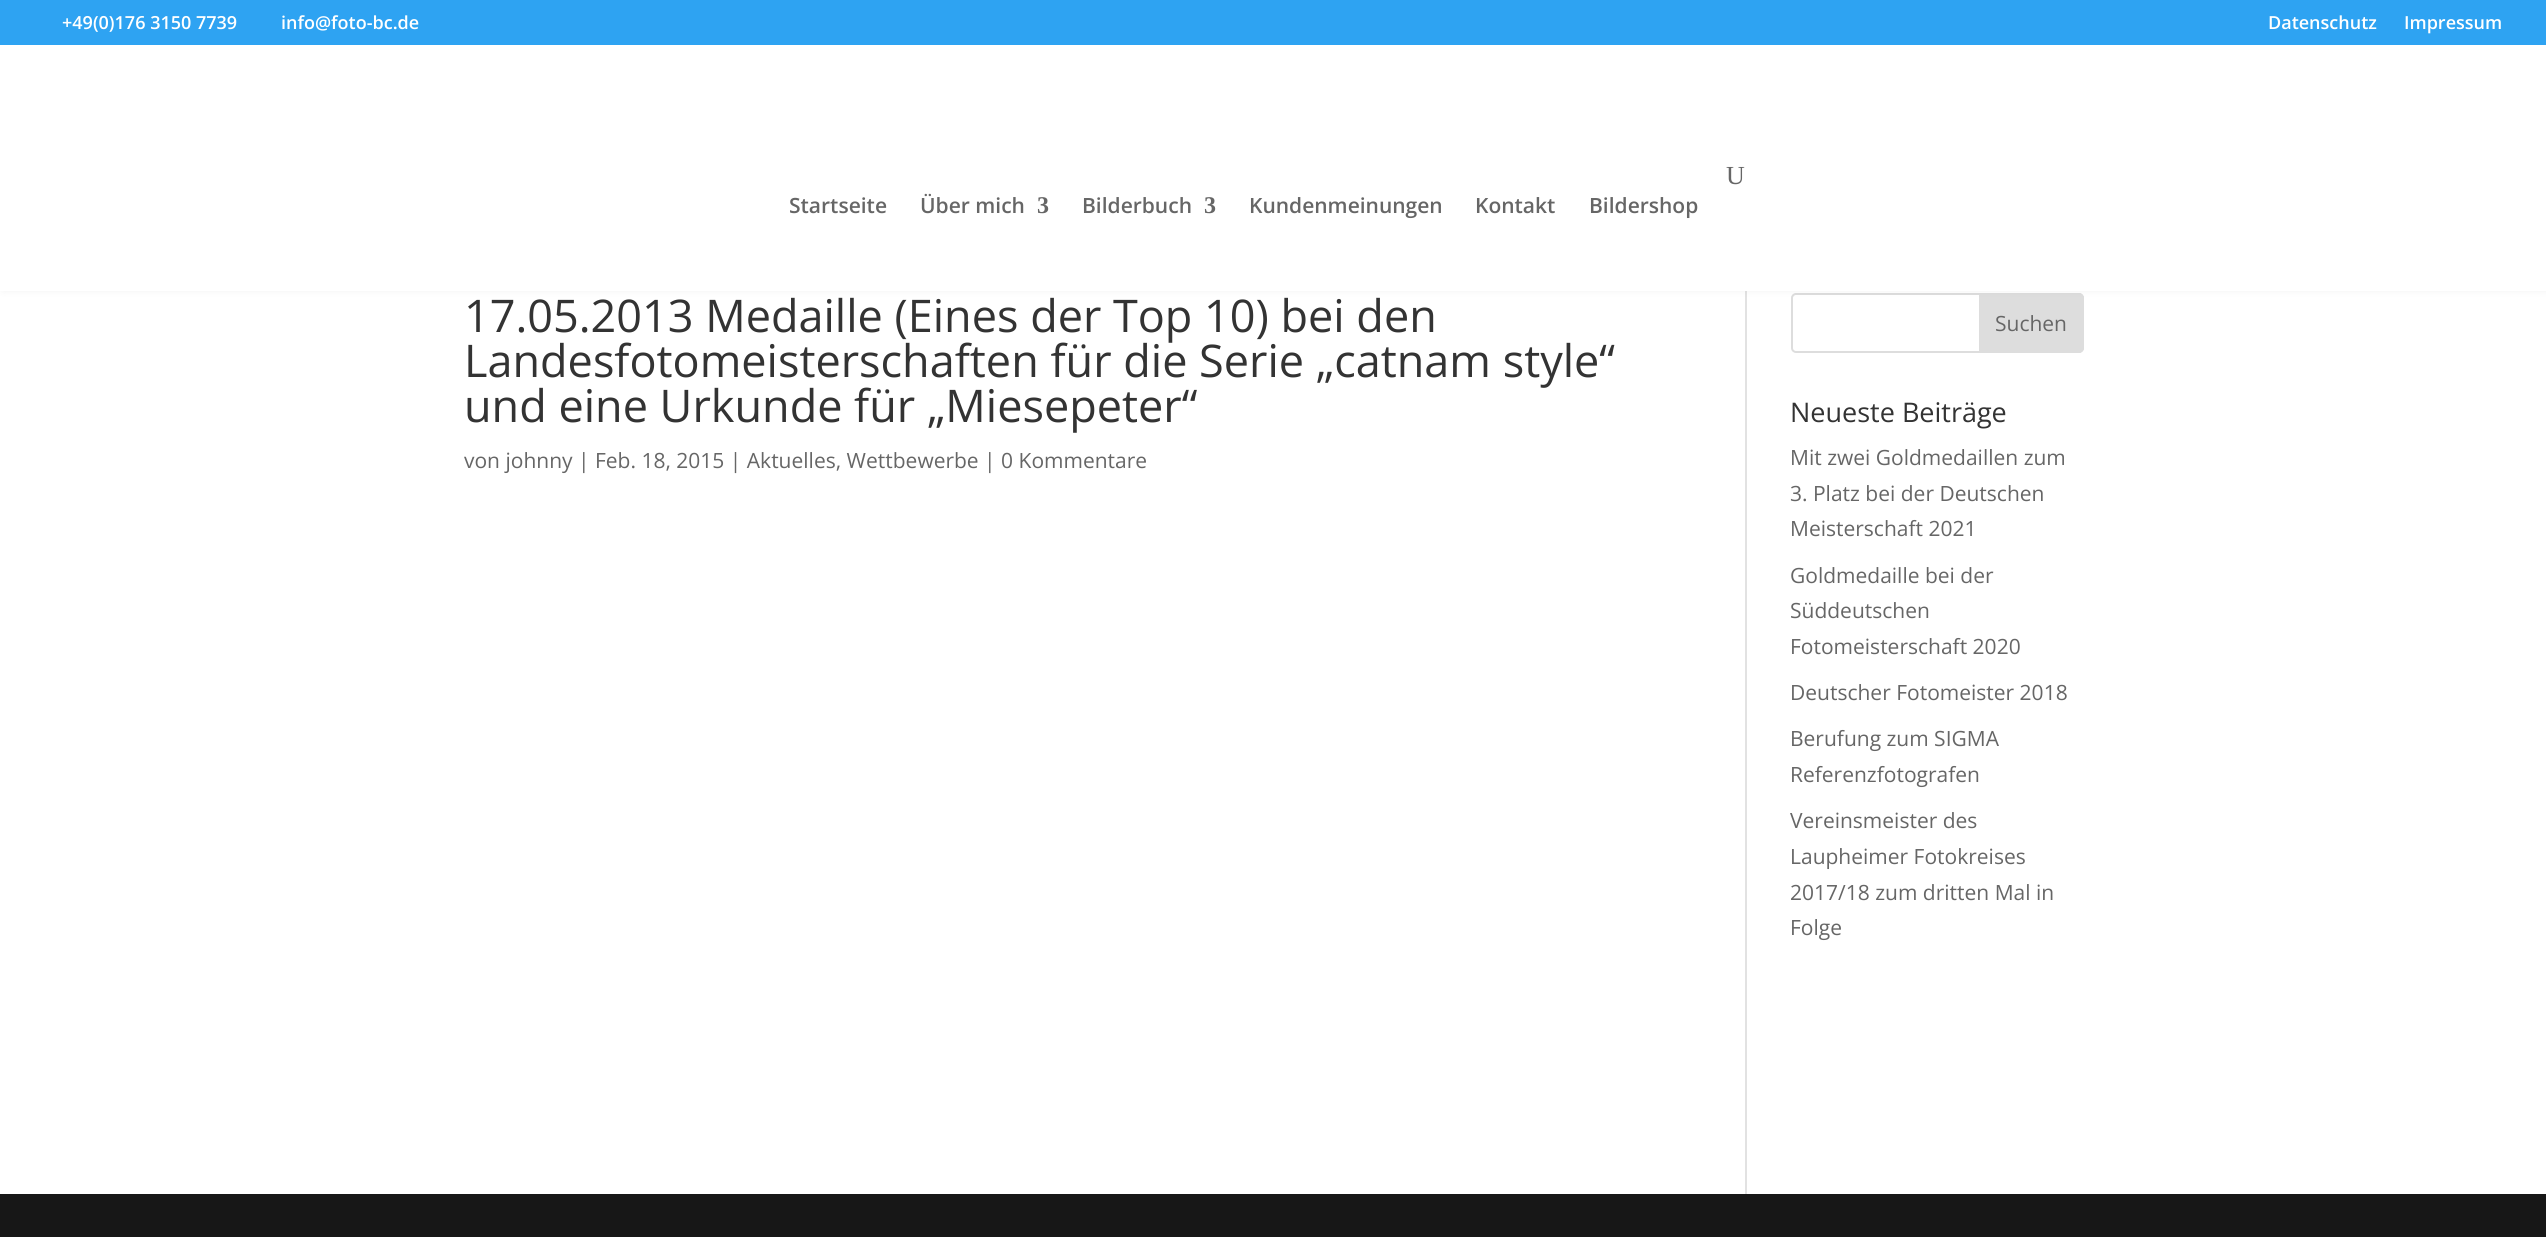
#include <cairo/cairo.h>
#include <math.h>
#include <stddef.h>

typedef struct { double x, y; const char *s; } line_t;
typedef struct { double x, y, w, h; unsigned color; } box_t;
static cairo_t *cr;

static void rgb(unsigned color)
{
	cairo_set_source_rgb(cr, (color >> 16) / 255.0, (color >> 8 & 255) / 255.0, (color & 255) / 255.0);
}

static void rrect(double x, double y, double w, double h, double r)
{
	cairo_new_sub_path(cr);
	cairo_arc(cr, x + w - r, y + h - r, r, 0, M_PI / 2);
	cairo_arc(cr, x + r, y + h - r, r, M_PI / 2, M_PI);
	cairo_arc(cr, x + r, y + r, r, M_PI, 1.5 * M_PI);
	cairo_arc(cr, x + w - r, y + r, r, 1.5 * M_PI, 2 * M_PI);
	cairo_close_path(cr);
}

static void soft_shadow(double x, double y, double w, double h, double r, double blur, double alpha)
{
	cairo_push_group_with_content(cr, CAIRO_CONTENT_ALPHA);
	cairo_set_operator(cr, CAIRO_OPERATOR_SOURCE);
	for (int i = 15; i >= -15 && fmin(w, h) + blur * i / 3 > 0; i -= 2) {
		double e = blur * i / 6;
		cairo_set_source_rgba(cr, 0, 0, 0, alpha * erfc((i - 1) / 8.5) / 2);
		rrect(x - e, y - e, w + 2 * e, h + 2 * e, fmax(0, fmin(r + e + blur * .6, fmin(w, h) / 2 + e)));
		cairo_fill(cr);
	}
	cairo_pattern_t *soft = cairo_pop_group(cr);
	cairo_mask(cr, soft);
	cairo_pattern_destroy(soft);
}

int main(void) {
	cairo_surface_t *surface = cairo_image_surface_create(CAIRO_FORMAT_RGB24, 2546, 1237);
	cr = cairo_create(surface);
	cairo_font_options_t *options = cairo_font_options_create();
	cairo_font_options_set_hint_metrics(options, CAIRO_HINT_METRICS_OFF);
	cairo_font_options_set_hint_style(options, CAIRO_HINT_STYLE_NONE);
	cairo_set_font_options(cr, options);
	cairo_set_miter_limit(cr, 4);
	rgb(0xffffff);
	cairo_paint(cr);
	rgb(0xe2e2e2);
	cairo_rectangle(cr, 1745, 291, 2, 903);
	cairo_fill(cr);
	rrect(1792, 294, 291, 58, 4);
	rgb(0xdddddd);
	cairo_stroke(cr);
	cairo_new_path(cr);
	cairo_move_to(cr, 1980, 294);
	cairo_line_to(cr, 2079, 294);
	cairo_curve_to(cr, 2081, 294, 2083, 296, 2083, 298);
	cairo_line_to(cr, 2083, 348);
	cairo_curve_to(cr, 2083, 350, 2081, 352, 2079, 352);
	cairo_line_to(cr, 1980, 352);
	cairo_close_path(cr);
	cairo_fill_preserve(cr);
	cairo_stroke(cr);
	rgb(0x000000);
	soft_shadow(3, 42, 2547, 246, 0, 5, 0.1);
	{
		static const box_t items[] = {
			{0, 0, 2546, 45, 0x2ea3f2},
			{0, 45, 2546, 246, 0xffffff},
			{0, 1194, 2546, 43, 0x171717},
		};
		for (size_t i = 0; i < sizeof items / sizeof *items; i++) {
			rgb(items[i].color);
			cairo_rectangle(cr, items[i].x, items[i].y, items[i].w, items[i].h);
			cairo_fill(cr);
		}
	}
	cairo_select_font_face(cr, "Open Sans SemiBold", CAIRO_FONT_SLANT_NORMAL, CAIRO_FONT_WEIGHT_NORMAL);
	cairo_set_font_size(cr, 18);
	rgb(0xffffff);
	{
		static const line_t items[] = {
			{62, 29, "+49(0)176 3150 7739"},
			{281, 29, "info@foto-bc.de"},
			{2268, 29, "Datenschutz"},
			{2404, 29, "Impressum"},
		};
		for (size_t i = 0; i < sizeof items / sizeof *items; i++) {
			cairo_move_to(cr, items[i].x, items[i].y);
			cairo_show_text(cr, items[i].s);
		}
	}
	cairo_select_font_face(cr, "Liberation Serif", CAIRO_FONT_SLANT_NORMAL, CAIRO_FONT_WEIGHT_NORMAL);
	cairo_set_font_size(cr, 26);
	rgb(0x666666);
	cairo_move_to(cr, 1726, 184);
	cairo_show_text(cr, "U");
	cairo_select_font_face(cr, "Open Sans SemiBold", CAIRO_FONT_SLANT_NORMAL, CAIRO_FONT_WEIGHT_NORMAL);
	cairo_set_font_size(cr, 21);
	cairo_move_to(cr, 789, 213);
	cairo_show_text(cr, "Startseite");
	cairo_move_to(cr, 920, 213);
	cairo_show_text(cr, "Über mich");
	cairo_select_font_face(cr, "Liberation Serif", CAIRO_FONT_SLANT_NORMAL, CAIRO_FONT_WEIGHT_BOLD);
	cairo_set_font_size(cr, 24);
	cairo_move_to(cr, 1037, 213);
	cairo_show_text(cr, "3");
	cairo_select_font_face(cr, "Open Sans SemiBold", CAIRO_FONT_SLANT_NORMAL, CAIRO_FONT_WEIGHT_NORMAL);
	cairo_set_font_size(cr, 21);
	cairo_move_to(cr, 1082, 213);
	cairo_show_text(cr, "Bilderbuch");
	cairo_select_font_face(cr, "Liberation Serif", CAIRO_FONT_SLANT_NORMAL, CAIRO_FONT_WEIGHT_BOLD);
	cairo_set_font_size(cr, 24);
	cairo_move_to(cr, 1204, 213);
	cairo_show_text(cr, "3");
	cairo_select_font_face(cr, "Open Sans SemiBold", CAIRO_FONT_SLANT_NORMAL, CAIRO_FONT_WEIGHT_NORMAL);
	cairo_set_font_size(cr, 21);
	{
		static const line_t items[] = {
			{1249, 213, "Kundenmeinungen"},
			{1475, 213, "Kontakt"},
			{1589, 213, "Bildershop"},
		};
		for (size_t i = 0; i < sizeof items / sizeof *items; i++) {
			cairo_move_to(cr, items[i].x, items[i].y);
			cairo_show_text(cr, items[i].s);
		}
	}
	cairo_select_font_face(cr, "Open Sans", CAIRO_FONT_SLANT_NORMAL, CAIRO_FONT_WEIGHT_NORMAL);
	cairo_set_font_size(cr, 45);
	rgb(0x333333);
	{
		static const line_t items[] = {
			{464, 332, "17.05.2013 Medaille (Eines der Top 10) bei den"},
			{464, 377, "Landesfotomeisterschaften für die Serie „catnam style“"},
			{464, 422, "und eine Urkunde für „Miesepeter“"},
		};
		for (size_t i = 0; i < sizeof items / sizeof *items; i++) {
			cairo_move_to(cr, items[i].x, items[i].y);
			cairo_show_text(cr, items[i].s);
		}
	}
	cairo_set_font_size(cr, 21);
	rgb(0x666666);
	cairo_move_to(cr, 464, 468);
	cairo_show_text(cr, "von johnny | Feb. 18, 2015 | Aktuelles, Wettbewerbe | 0 Kommentare");
	cairo_move_to(cr, 1995, 331);
	cairo_show_text(cr, "Suchen");
	cairo_set_font_size(cr, 27);
	rgb(0x333333);
	cairo_move_to(cr, 1790, 422);
	cairo_show_text(cr, "Neueste Beiträge");
	cairo_set_font_size(cr, 21);
	rgb(0x666666);
	{
		static const line_t items[] = {
			{1790, 465, "Mit zwei Goldmedaillen zum"},
			{1790, 501, "3. Platz bei der Deutschen"},
			{1790, 536, "Meisterschaft 2021"},
			{1790, 583, "Goldmedaille bei der"},
			{1790, 618, "Süddeutschen"},
			{1790, 654, "Fotomeisterschaft 2020"},
			{1790, 700, "Deutscher Fotomeister 2018"},
			{1790, 746, "Berufung zum SIGMA"},
			{1790, 782, "Referenzfotografen"},
			{1790, 828, "Vereinsmeister des"},
			{1790, 864, "Laupheimer Fotokreises"},
			{1790, 900, "2017/18 zum dritten Mal in"},
			{1790, 935, "Folge"},
		};
		for (size_t i = 0; i < sizeof items / sizeof *items; i++) {
			cairo_move_to(cr, items[i].x, items[i].y);
			cairo_show_text(cr, items[i].s);
		}
	}
	cairo_surface_write_to_png(surface, "page.png");
	cairo_font_options_destroy(options);
	cairo_destroy(cr);
	cairo_surface_destroy(surface);
	return 0;
}
